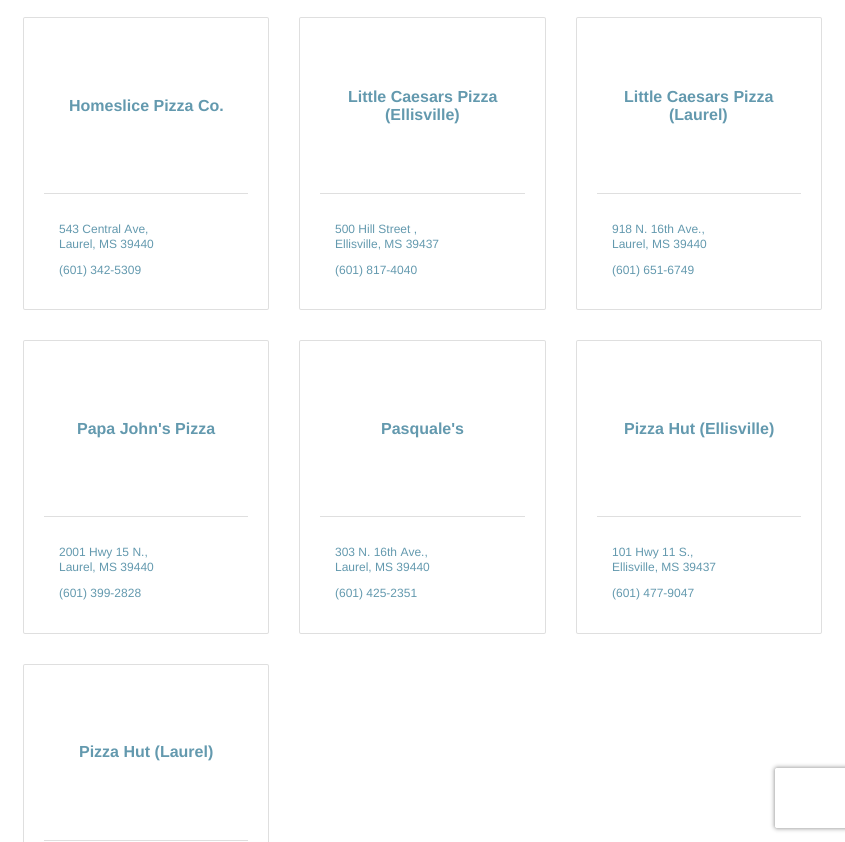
#include <cairo/cairo.h>
#include <math.h>
#include <stddef.h>

typedef struct { double x, y; const char *s; } line_t;
static cairo_t *cr;

static void rgb(unsigned color)
{
	cairo_set_source_rgb(cr, (color >> 16) / 255.0, (color >> 8 & 255) / 255.0, (color & 255) / 255.0);
}

static void rrect(double x, double y, double w, double h, double r)
{
	cairo_new_sub_path(cr);
	cairo_arc(cr, x + w - r, y + h - r, r, 0, M_PI / 2);
	cairo_arc(cr, x + r, y + h - r, r, M_PI / 2, M_PI);
	cairo_arc(cr, x + r, y + r, r, M_PI, 1.5 * M_PI);
	cairo_arc(cr, x + w - r, y + r, r, 1.5 * M_PI, 2 * M_PI);
	cairo_close_path(cr);
}

static void soft_shadow(double x, double y, double w, double h, double r, double blur, double alpha)
{
	cairo_push_group_with_content(cr, CAIRO_CONTENT_ALPHA);
	cairo_set_operator(cr, CAIRO_OPERATOR_SOURCE);
	for (int i = 15; i >= -15 && fmin(w, h) + blur * i / 3 > 0; i -= 2) {
		double e = blur * i / 6;
		cairo_set_source_rgba(cr, 0, 0, 0, alpha * erfc((i - 1) / 8.5) / 2);
		rrect(x - e, y - e, w + 2 * e, h + 2 * e, fmax(0, fmin(r + e + blur * .6, fmin(w, h) / 2 + e)));
		cairo_fill(cr);
	}
	cairo_pattern_t *soft = cairo_pop_group(cr);
	cairo_mask(cr, soft);
	cairo_pattern_destroy(soft);
}

int main(void) {
	cairo_surface_t *surface = cairo_image_surface_create(CAIRO_FORMAT_RGB24, 845, 842);
	cr = cairo_create(surface);
	cairo_font_options_t *options = cairo_font_options_create();
	cairo_font_options_set_hint_metrics(options, CAIRO_HINT_METRICS_OFF);
	cairo_font_options_set_hint_style(options, CAIRO_HINT_STYLE_NONE);
	cairo_set_font_options(cr, options);
	cairo_set_miter_limit(cr, 4);
	rgb(0xffffff);
	cairo_paint(cr);
	rrect(23.5, 17.5, 245, 292, 1.5);
	rgb(0xdfdfdf);
	cairo_set_line_width(cr, 1);
	cairo_stroke(cr);
	cairo_rectangle(cr, 44, 193, 204, 1);
	cairo_fill(cr);
	rrect(299.5, 17.5, 246, 292, 1.5);
	cairo_stroke(cr);
	cairo_rectangle(cr, 320, 193, 205, 1);
	cairo_fill(cr);
	rrect(576.5, 17.5, 245, 292, 1.5);
	cairo_stroke(cr);
	cairo_rectangle(cr, 597, 193, 204, 1);
	cairo_fill(cr);
	rrect(23.5, 340.5, 245, 293, 1.5);
	cairo_stroke(cr);
	cairo_rectangle(cr, 44, 516, 204, 1);
	cairo_fill(cr);
	rrect(299.5, 340.5, 246, 293, 1.5);
	cairo_stroke(cr);
	cairo_rectangle(cr, 320, 516, 205, 1);
	cairo_fill(cr);
	rrect(576.5, 340.5, 245, 293, 1.5);
	cairo_stroke(cr);
	cairo_rectangle(cr, 597, 516, 204, 1);
	cairo_fill(cr);
	rrect(23.5, 664.5, 245, 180, 1.5);
	cairo_stroke(cr);
	cairo_rectangle(cr, 44, 840, 204, 1);
	cairo_fill(cr);
	cairo_save(cr);
	cairo_set_fill_rule(cr, CAIRO_FILL_RULE_EVEN_ODD);
	cairo_new_path(cr);
	cairo_move_to(cr, 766, 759);
	cairo_line_to(cr, 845, 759);
	cairo_line_to(cr, 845, 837);
	cairo_line_to(cr, 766, 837);
	cairo_close_path(cr);
	cairo_move_to(cr, 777, 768);
	cairo_line_to(cr, 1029, 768);
	cairo_curve_to(cr, 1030, 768, 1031, 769, 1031, 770);
	cairo_line_to(cr, 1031, 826);
	cairo_curve_to(cr, 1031, 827, 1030, 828, 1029, 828);
	cairo_line_to(cr, 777, 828);
	cairo_curve_to(cr, 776, 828, 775, 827, 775, 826);
	cairo_line_to(cr, 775, 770);
	cairo_curve_to(cr, 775, 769, 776, 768, 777, 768);
	cairo_close_path(cr);
	cairo_clip(cr);
	rgb(0x808080);
	soft_shadow(775, 768, 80, 60, 2, 2.5, 1);
	cairo_restore(cr);
	cairo_select_font_face(cr, "Liberation Sans", CAIRO_FONT_SLANT_NORMAL, CAIRO_FONT_WEIGHT_BOLD);
	cairo_set_font_size(cr, 16);
	rgb(0x6399ae);
	cairo_move_to(cr, 69, 111);
	cairo_show_text(cr, "Homeslice Pizza Co.");
	cairo_select_font_face(cr, "Liberation Sans", CAIRO_FONT_SLANT_NORMAL, CAIRO_FONT_WEIGHT_NORMAL);
	cairo_set_font_size(cr, 12);
	{
		static const line_t items[] = {
			{59, 233, "543 Central Ave,"},
			{59, 248, "Laurel, MS 39440"},
			{59, 274, "(601) 342-5309"},
		};
		for (size_t i = 0; i < sizeof items / sizeof *items; i++) {
			cairo_move_to(cr, items[i].x, items[i].y);
			cairo_show_text(cr, items[i].s);
		}
	}
	cairo_select_font_face(cr, "Liberation Sans", CAIRO_FONT_SLANT_NORMAL, CAIRO_FONT_WEIGHT_BOLD);
	cairo_set_font_size(cr, 16);
	cairo_move_to(cr, 348, 102);
	cairo_show_text(cr, "Little Caesars Pizza");
	cairo_move_to(cr, 385, 120);
	cairo_show_text(cr, "(Ellisville)");
	cairo_select_font_face(cr, "Liberation Sans", CAIRO_FONT_SLANT_NORMAL, CAIRO_FONT_WEIGHT_NORMAL);
	cairo_set_font_size(cr, 12);
	{
		static const line_t items[] = {
			{335, 233, "500 Hill Street ,"},
			{335, 248, "Ellisville, MS 39437"},
			{335, 274, "(601) 817-4040"},
		};
		for (size_t i = 0; i < sizeof items / sizeof *items; i++) {
			cairo_move_to(cr, items[i].x, items[i].y);
			cairo_show_text(cr, items[i].s);
		}
	}
	cairo_select_font_face(cr, "Liberation Sans", CAIRO_FONT_SLANT_NORMAL, CAIRO_FONT_WEIGHT_BOLD);
	cairo_set_font_size(cr, 16);
	cairo_move_to(cr, 624, 102);
	cairo_show_text(cr, "Little Caesars Pizza");
	cairo_move_to(cr, 669, 120);
	cairo_show_text(cr, "(Laurel)");
	cairo_select_font_face(cr, "Liberation Sans", CAIRO_FONT_SLANT_NORMAL, CAIRO_FONT_WEIGHT_NORMAL);
	cairo_set_font_size(cr, 12);
	{
		static const line_t items[] = {
			{612, 233, "918 N. 16th Ave.,"},
			{612, 248, "Laurel, MS 39440"},
			{612, 274, "(601) 651-6749"},
		};
		for (size_t i = 0; i < sizeof items / sizeof *items; i++) {
			cairo_move_to(cr, items[i].x, items[i].y);
			cairo_show_text(cr, items[i].s);
		}
	}
	cairo_select_font_face(cr, "Liberation Sans", CAIRO_FONT_SLANT_NORMAL, CAIRO_FONT_WEIGHT_BOLD);
	cairo_set_font_size(cr, 16);
	cairo_move_to(cr, 77, 434);
	cairo_show_text(cr, "Papa John's Pizza");
	cairo_select_font_face(cr, "Liberation Sans", CAIRO_FONT_SLANT_NORMAL, CAIRO_FONT_WEIGHT_NORMAL);
	cairo_set_font_size(cr, 12);
	{
		static const line_t items[] = {
			{59, 556, "2001 Hwy 15 N.,"},
			{59, 571, "Laurel, MS 39440"},
			{59, 597, "(601) 399-2828"},
		};
		for (size_t i = 0; i < sizeof items / sizeof *items; i++) {
			cairo_move_to(cr, items[i].x, items[i].y);
			cairo_show_text(cr, items[i].s);
		}
	}
	cairo_select_font_face(cr, "Liberation Sans", CAIRO_FONT_SLANT_NORMAL, CAIRO_FONT_WEIGHT_BOLD);
	cairo_set_font_size(cr, 16);
	cairo_move_to(cr, 381, 434);
	cairo_show_text(cr, "Pasquale's");
	cairo_select_font_face(cr, "Liberation Sans", CAIRO_FONT_SLANT_NORMAL, CAIRO_FONT_WEIGHT_NORMAL);
	cairo_set_font_size(cr, 12);
	{
		static const line_t items[] = {
			{335, 556, "303 N. 16th Ave.,"},
			{335, 571, "Laurel, MS 39440"},
			{335, 597, "(601) 425-2351"},
		};
		for (size_t i = 0; i < sizeof items / sizeof *items; i++) {
			cairo_move_to(cr, items[i].x, items[i].y);
			cairo_show_text(cr, items[i].s);
		}
	}
	cairo_select_font_face(cr, "Liberation Sans", CAIRO_FONT_SLANT_NORMAL, CAIRO_FONT_WEIGHT_BOLD);
	cairo_set_font_size(cr, 16);
	cairo_move_to(cr, 624, 434);
	cairo_show_text(cr, "Pizza Hut (Ellisville)");
	cairo_select_font_face(cr, "Liberation Sans", CAIRO_FONT_SLANT_NORMAL, CAIRO_FONT_WEIGHT_NORMAL);
	cairo_set_font_size(cr, 12);
	{
		static const line_t items[] = {
			{612, 556, "101 Hwy 11 S.,"},
			{612, 571, "Ellisville, MS 39437"},
			{612, 597, "(601) 477-9047"},
		};
		for (size_t i = 0; i < sizeof items / sizeof *items; i++) {
			cairo_move_to(cr, items[i].x, items[i].y);
			cairo_show_text(cr, items[i].s);
		}
	}
	cairo_select_font_face(cr, "Liberation Sans", CAIRO_FONT_SLANT_NORMAL, CAIRO_FONT_WEIGHT_BOLD);
	cairo_set_font_size(cr, 16);
	cairo_move_to(cr, 79, 757);
	cairo_show_text(cr, "Pizza Hut (Laurel)");
	cairo_surface_write_to_png(surface, "page.png");
	cairo_font_options_destroy(options);
	cairo_destroy(cr);
	cairo_surface_destroy(surface);
	return 0;
}
